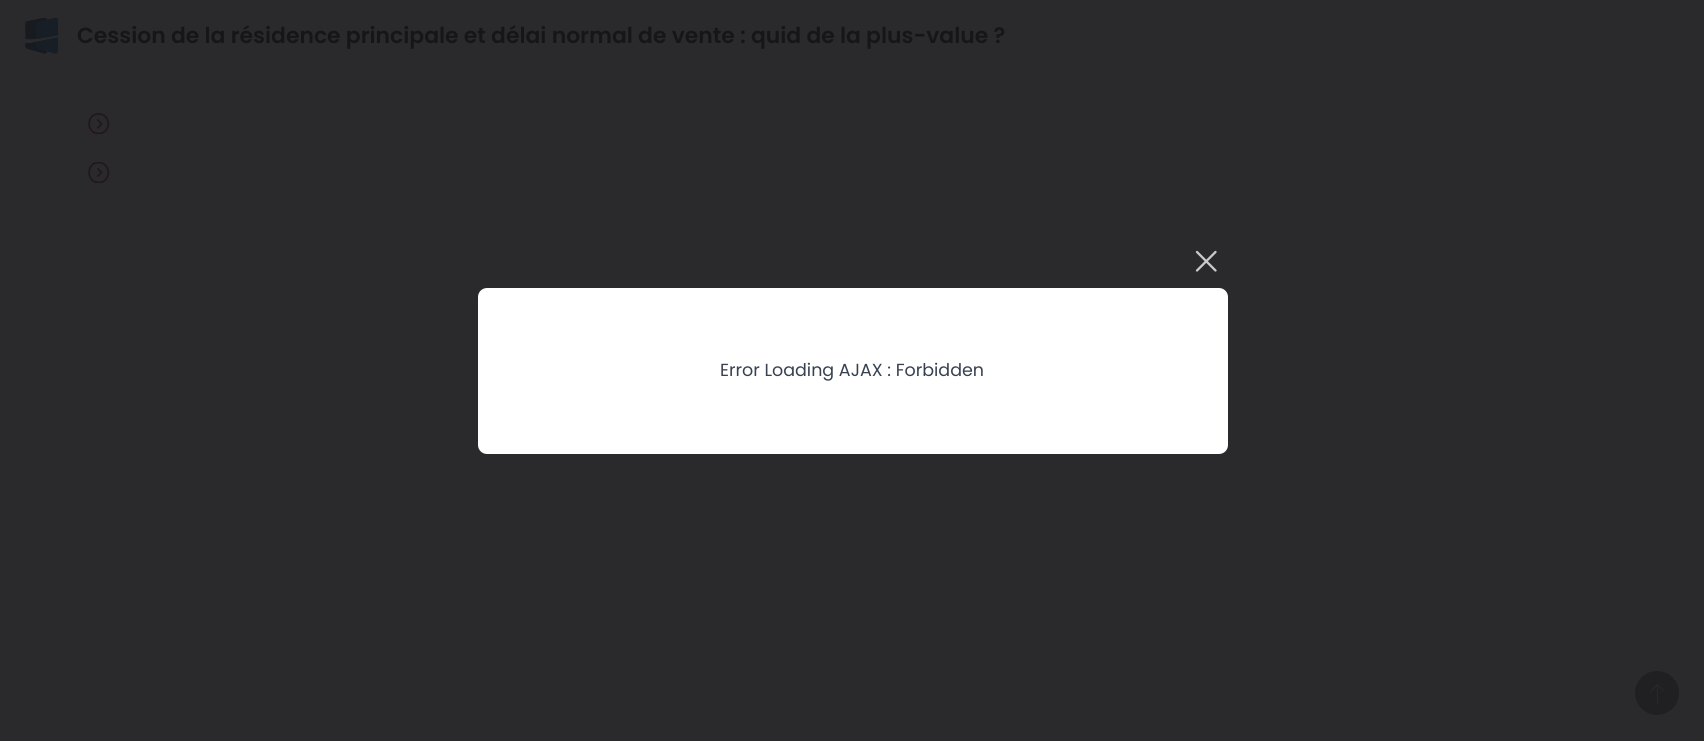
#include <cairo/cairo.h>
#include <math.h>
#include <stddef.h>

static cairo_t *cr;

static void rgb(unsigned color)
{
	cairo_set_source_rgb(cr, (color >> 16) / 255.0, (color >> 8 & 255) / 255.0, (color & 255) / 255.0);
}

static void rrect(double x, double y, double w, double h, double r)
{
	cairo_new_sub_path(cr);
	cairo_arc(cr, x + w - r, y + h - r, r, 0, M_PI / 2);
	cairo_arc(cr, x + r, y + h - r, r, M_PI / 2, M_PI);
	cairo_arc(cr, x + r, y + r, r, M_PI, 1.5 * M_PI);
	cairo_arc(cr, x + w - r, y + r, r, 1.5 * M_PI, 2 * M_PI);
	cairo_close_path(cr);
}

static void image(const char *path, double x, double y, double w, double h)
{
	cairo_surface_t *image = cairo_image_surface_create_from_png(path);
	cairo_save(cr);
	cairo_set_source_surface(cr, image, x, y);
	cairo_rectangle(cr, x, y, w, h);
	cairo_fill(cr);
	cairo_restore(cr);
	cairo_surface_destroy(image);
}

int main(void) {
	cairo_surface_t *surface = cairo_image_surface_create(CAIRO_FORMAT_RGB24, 1704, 741);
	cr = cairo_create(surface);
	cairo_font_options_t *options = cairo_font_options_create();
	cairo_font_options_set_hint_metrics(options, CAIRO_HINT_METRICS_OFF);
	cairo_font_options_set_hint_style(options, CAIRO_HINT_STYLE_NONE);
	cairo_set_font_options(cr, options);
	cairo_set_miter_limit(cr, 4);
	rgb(0x2a2a2d);
	cairo_paint(cr);
	image("img/1.png", 25, 18, 34, 36);
	cairo_save(cr);
	cairo_rectangle(cr, 88, 113, 21, 21);
	cairo_clip(cr);
	cairo_new_path(cr);
	cairo_move_to(cr, 98.5, 133.5);
	cairo_curve_to(cr, 86, 133.5, 86, 114, 98.5, 114);
	cairo_curve_to(cr, 111.5, 114, 111.5, 133.5, 98.5, 133.5);
	cairo_close_path(cr);
	rgb(0x22181b);
	cairo_set_line_width(cr, 1.8);
	cairo_set_line_cap(cr, CAIRO_LINE_CAP_SQUARE);
	cairo_stroke(cr);
	cairo_restore(cr);
	cairo_new_path(cr);
	cairo_move_to(cr, 98, 127.5);
	cairo_line_to(cr, 101.5, 124);
	cairo_line_to(cr, 98, 120);
	rgb(0x22181b);
	cairo_set_line_width(cr, 1.8);
	cairo_set_line_cap(cr, CAIRO_LINE_CAP_SQUARE);
	cairo_stroke(cr);
	cairo_save(cr);
	cairo_rectangle(cr, 88, 162, 21, 21);
	cairo_clip(cr);
	cairo_new_path(cr);
	cairo_move_to(cr, 98.5, 182.5);
	cairo_curve_to(cr, 86, 182.5, 86, 162.5, 98.5, 162.5);
	cairo_curve_to(cr, 111.5, 162.5, 111.5, 182.5, 98.5, 182.5);
	cairo_close_path(cr);
	cairo_stroke(cr);
	cairo_restore(cr);
	cairo_new_path(cr);
	cairo_move_to(cr, 98, 176);
	cairo_line_to(cr, 101.5, 172.5);
	cairo_line_to(cr, 98, 169);
	cairo_stroke(cr);
	rgb(0xffffff);
	rrect(478, 288, 750, 166, 9);
	cairo_fill(cr);
	cairo_new_path(cr);
	cairo_move_to(cr, 1215.5, 270.5);
	cairo_line_to(cr, 1197, 252);
	cairo_move_to(cr, 1215.5, 252);
	cairo_line_to(cr, 1197, 270.5);
	cairo_set_source_rgba(cr, 1, 1, 1, 0.75);
	cairo_set_line_width(cr, 2.3);
	cairo_set_line_cap(cr, CAIRO_LINE_CAP_ROUND);
	cairo_set_line_join(cr, CAIRO_LINE_JOIN_ROUND);
	cairo_stroke(cr);
	rgb(0x202023);
	cairo_arc(cr, 1657, 693, 22, 0, 2 * M_PI);
	cairo_fill(cr);
	cairo_new_path(cr);
	cairo_move_to(cr, 1657.5, 703);
	cairo_line_to(cr, 1657.5, 684.5);
	cairo_move_to(cr, 1651, 691);
	cairo_line_to(cr, 1657.5, 684.5);
	cairo_line_to(cr, 1664, 691);
	rgb(0x2a2a2d);
	cairo_set_line_width(cr, 0.9);
	cairo_stroke(cr);
	cairo_select_font_face(cr, "Poppins SemiBold", CAIRO_FONT_SLANT_NORMAL, CAIRO_FONT_WEIGHT_NORMAL);
	cairo_set_font_size(cr, 21.9);
	rgb(0x161619);
	cairo_move_to(cr, 77, 43);
	cairo_show_text(cr, "Cession de la résidence principale et délai normal de vente : quid de la plus-value ?");
	cairo_select_font_face(cr, "Poppins", CAIRO_FONT_SLANT_NORMAL, CAIRO_FONT_WEIGHT_NORMAL);
	cairo_set_font_size(cr, 17.5);
	rgb(0x374151);
	cairo_move_to(cr, 720, 376);
	cairo_show_text(cr, "Error Loading AJAX : Forbidden");
	cairo_surface_write_to_png(surface, "page.png");
	cairo_font_options_destroy(options);
	cairo_destroy(cr);
	cairo_surface_destroy(surface);
	return 0;
}
